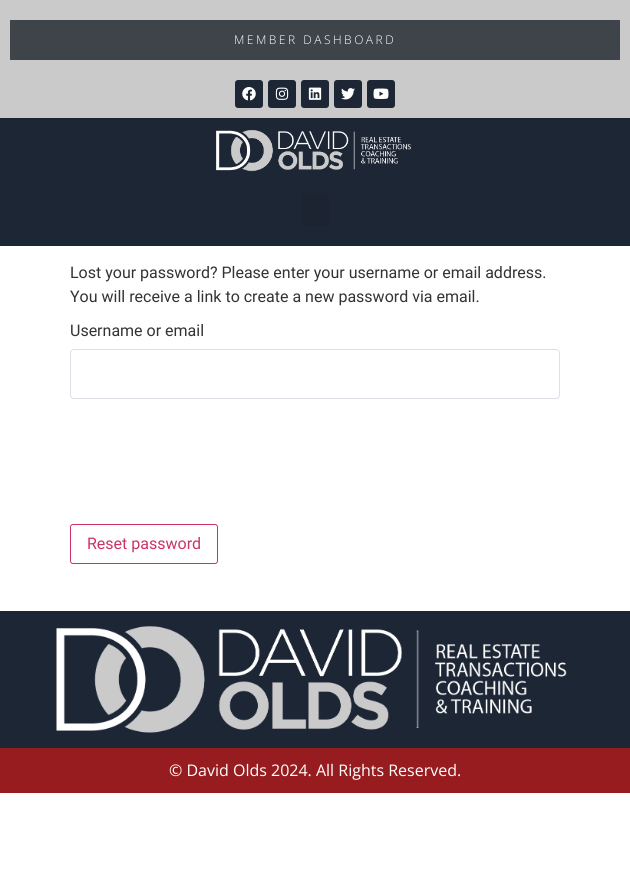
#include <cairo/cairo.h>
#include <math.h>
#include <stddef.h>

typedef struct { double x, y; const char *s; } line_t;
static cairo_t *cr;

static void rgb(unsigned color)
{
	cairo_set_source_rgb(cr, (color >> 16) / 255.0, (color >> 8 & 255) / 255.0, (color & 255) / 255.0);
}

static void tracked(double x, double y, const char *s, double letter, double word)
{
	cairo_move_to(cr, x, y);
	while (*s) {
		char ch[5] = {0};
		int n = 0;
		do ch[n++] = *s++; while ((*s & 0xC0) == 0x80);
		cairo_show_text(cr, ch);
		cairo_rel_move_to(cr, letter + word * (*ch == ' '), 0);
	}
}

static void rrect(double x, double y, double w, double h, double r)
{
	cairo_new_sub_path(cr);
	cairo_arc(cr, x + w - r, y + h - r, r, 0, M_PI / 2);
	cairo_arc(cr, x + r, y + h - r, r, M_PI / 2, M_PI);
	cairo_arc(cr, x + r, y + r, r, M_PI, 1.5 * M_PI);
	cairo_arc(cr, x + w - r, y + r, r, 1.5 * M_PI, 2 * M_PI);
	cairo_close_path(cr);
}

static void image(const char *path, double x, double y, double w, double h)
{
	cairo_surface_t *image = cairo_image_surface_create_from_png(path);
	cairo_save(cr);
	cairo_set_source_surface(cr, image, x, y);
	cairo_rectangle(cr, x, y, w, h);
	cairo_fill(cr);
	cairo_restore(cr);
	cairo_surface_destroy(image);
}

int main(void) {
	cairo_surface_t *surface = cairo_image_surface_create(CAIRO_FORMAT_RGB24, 630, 872);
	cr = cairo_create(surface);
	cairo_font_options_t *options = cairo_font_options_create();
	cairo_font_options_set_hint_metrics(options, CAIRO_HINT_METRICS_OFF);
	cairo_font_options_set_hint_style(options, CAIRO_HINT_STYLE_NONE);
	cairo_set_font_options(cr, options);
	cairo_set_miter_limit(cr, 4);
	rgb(0xffffff);
	cairo_paint(cr);
	rgb(0xcacaca);
	cairo_rectangle(cr, 0, 0, 630, 118);
	cairo_fill(cr);
	rgb(0x3f444b);
	cairo_rectangle(cr, 10, 20, 610, 40);
	cairo_fill(cr);
	rgb(0x1d2634);
	rrect(235, 80, 28, 28, 3);
	cairo_fill(cr);
	image("img/1.png", 242, 87, 14, 14);
	rrect(268, 80, 28, 28, 3);
	cairo_fill(cr);
	image("img/2.png", 275, 87, 14, 13);
	rrect(301, 80, 28, 28, 3);
	cairo_fill(cr);
	image("img/3.png", 308, 87, 14, 13);
	rrect(334, 80, 28, 28, 3);
	cairo_fill(cr);
	image("img/4.png", 341, 88, 14, 12);
	rrect(367, 80, 28, 28, 3);
	cairo_fill(cr);
	image("img/5.png", 373, 88, 16, 11);
	cairo_rectangle(cr, 0, 118, 630, 128);
	cairo_fill(cr);
	image("img/6.png", 216, 129, 195, 43);
	rgb(0x1c2431);
	rrect(301, 193, 28, 33, 3);
	cairo_fill(cr);
	rrect(70.5, 349.5, 489, 49, 3.5);
	rgb(0xdcdfe5);
	cairo_set_line_width(cr, 1);
	cairo_stroke(cr);
	rrect(70.5, 524.5, 147, 39, 2.5);
	rgb(0xcc3366);
	cairo_stroke(cr);
	rgb(0x1d2634);
	cairo_rectangle(cr, 0, 611, 630, 137);
	cairo_fill(cr);
	image("img/7.png", 56, 626, 511, 107);
	rgb(0x971c1f);
	cairo_rectangle(cr, 0, 748, 630, 45);
	cairo_fill(cr);
	cairo_select_font_face(cr, "Open Sans Light", CAIRO_FONT_SLANT_NORMAL, CAIRO_FONT_WEIGHT_NORMAL);
	cairo_set_font_size(cr, 12);
	rgb(0xffffff);
	tracked(234, 44, "MEMBER DASHBOARD", 2.5, 0);
	cairo_select_font_face(cr, "Roboto", CAIRO_FONT_SLANT_NORMAL, CAIRO_FONT_WEIGHT_NORMAL);
	cairo_set_font_size(cr, 16);
	rgb(0x333333);
	{
		static const line_t items[] = {
			{70, 278, "Lost your password? Please enter your username or email address."},
			{70, 302, "You will receive a link to create a new password via email."},
			{70, 336, "Username or email"},
		};
		for (size_t i = 0; i < sizeof items / sizeof *items; i++) {
			cairo_move_to(cr, items[i].x, items[i].y);
			cairo_show_text(cr, items[i].s);
		}
	}
	rgb(0xcc3366);
	cairo_move_to(cr, 87, 549);
	cairo_show_text(cr, "Reset password");
	cairo_select_font_face(cr, "Open Sans", CAIRO_FONT_SLANT_NORMAL, CAIRO_FONT_WEIGHT_NORMAL);
	rgb(0xffffff);
	cairo_move_to(cr, 169, 776);
	cairo_show_text(cr, "© David Olds 2024. All Rights Reserved.");
	cairo_surface_write_to_png(surface, "page.png");
	cairo_font_options_destroy(options);
	cairo_destroy(cr);
	cairo_surface_destroy(surface);
	return 0;
}
